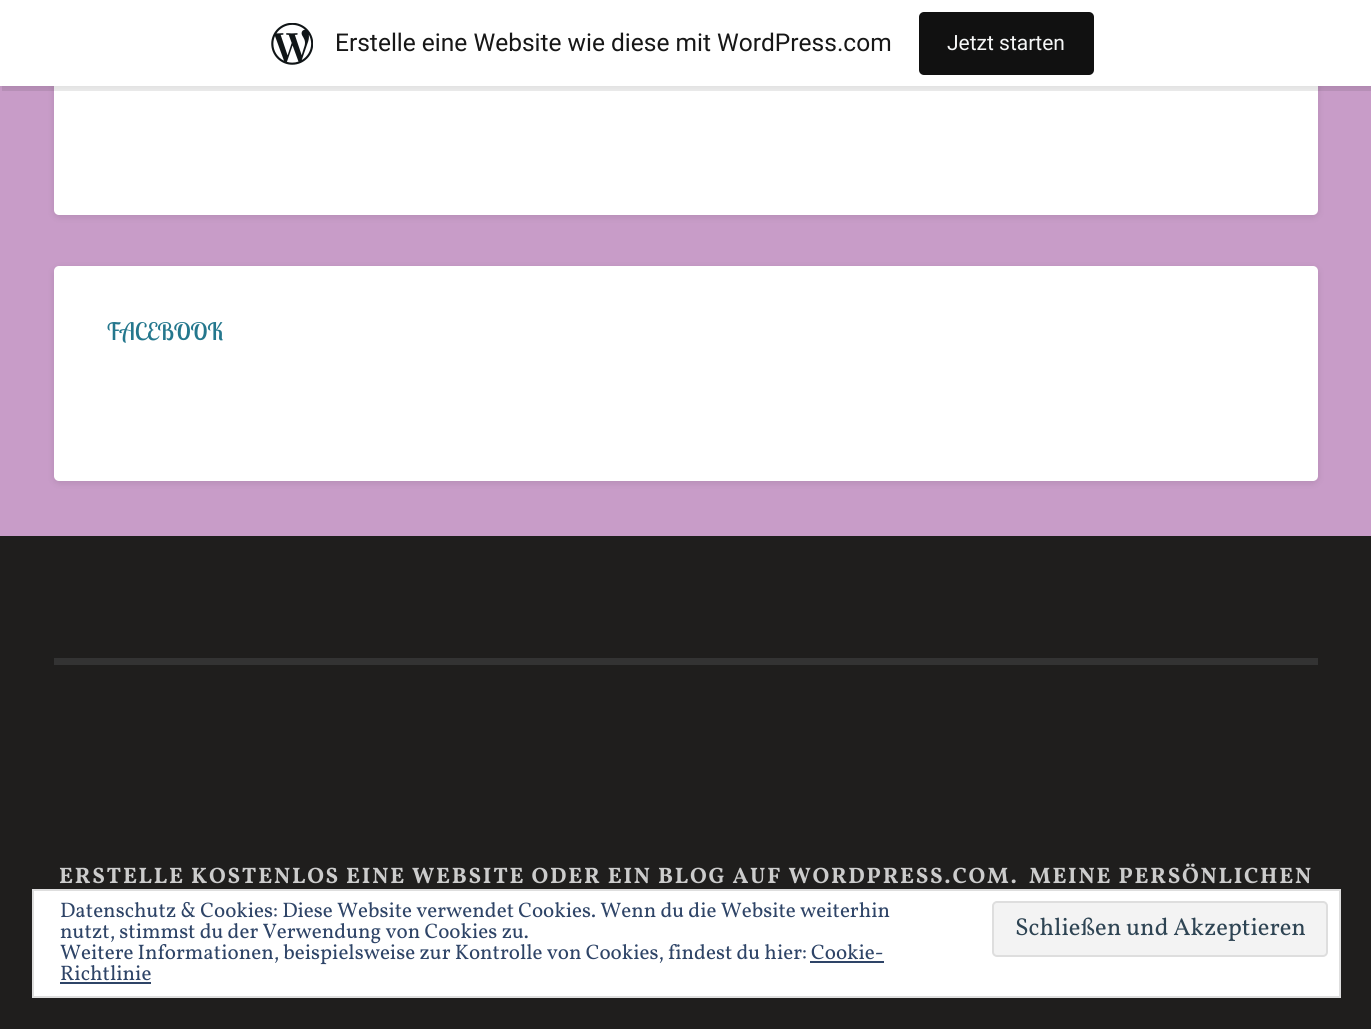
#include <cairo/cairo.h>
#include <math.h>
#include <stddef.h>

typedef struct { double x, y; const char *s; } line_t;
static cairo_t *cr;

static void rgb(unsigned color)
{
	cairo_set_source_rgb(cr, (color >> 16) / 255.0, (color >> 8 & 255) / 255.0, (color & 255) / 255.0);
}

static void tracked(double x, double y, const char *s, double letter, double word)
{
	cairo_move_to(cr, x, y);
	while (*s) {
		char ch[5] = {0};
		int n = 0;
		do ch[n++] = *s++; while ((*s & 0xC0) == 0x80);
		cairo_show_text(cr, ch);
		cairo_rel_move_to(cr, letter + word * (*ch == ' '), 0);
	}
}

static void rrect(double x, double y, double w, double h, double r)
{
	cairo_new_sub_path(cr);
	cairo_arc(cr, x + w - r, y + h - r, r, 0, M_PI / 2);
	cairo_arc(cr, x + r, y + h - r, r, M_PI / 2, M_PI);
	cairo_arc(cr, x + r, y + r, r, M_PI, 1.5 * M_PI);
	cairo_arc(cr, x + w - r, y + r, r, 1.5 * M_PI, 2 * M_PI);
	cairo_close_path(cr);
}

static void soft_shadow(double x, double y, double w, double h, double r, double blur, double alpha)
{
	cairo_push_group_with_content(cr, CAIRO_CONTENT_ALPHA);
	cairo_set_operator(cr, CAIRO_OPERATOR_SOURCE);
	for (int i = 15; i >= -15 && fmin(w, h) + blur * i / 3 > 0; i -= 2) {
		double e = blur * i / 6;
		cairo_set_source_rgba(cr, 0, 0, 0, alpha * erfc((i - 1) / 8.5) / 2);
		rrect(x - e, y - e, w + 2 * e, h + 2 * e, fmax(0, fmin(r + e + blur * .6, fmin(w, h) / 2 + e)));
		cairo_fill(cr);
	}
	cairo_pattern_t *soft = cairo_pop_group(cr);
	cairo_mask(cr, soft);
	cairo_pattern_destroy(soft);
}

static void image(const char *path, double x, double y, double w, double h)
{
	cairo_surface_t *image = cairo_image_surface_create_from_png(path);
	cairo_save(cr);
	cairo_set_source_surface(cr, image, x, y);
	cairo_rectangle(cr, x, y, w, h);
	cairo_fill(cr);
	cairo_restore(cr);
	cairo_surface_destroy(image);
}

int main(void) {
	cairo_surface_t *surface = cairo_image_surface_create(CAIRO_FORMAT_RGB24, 1371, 1029);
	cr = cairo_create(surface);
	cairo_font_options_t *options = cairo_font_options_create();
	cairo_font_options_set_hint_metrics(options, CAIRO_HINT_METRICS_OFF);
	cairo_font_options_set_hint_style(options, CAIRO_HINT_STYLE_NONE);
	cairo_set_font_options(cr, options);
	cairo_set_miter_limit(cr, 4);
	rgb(0xc89cc8);
	cairo_paint(cr);
	rgb(0x000000);
	soft_shadow(54, -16, 1264, 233, 5, 3.5, 0.1);
	rgb(0xffffff);
	rrect(54, -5, 1264, 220, 5);
	cairo_fill(cr);
	rgb(0x000000);
	soft_shadow(0, 2, 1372, 86, 0, 2, 0.05);
	cairo_set_source_rgba(cr, 0, 0, 0, 0.08);
	cairo_new_path(cr);
	cairo_move_to(cr, 2, 86);
	cairo_line_to(cr, 2, 91);
	cairo_line_to(cr, 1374, 91);
	cairo_line_to(cr, 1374, 5);
	cairo_line_to(cr, 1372, 5);
	cairo_line_to(cr, 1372, 86);
	cairo_close_path(cr);
	cairo_fill(cr);
	rgb(0xffffff);
	cairo_rectangle(cr, 0, 0, 1371, 86);
	cairo_fill(cr);
	image("img/1.png", 271, 23, 42, 42);
	rgb(0x111111);
	rrect(919, 12, 175, 63, 5);
	cairo_fill(cr);
	rgb(0x000000);
	soft_shadow(54, 268, 1264, 215, 5, 3.5, 0.1);
	rgb(0xffffff);
	rrect(54, 266, 1264, 215, 5);
	cairo_fill(cr);
	rgb(0x1f1e1d);
	cairo_rectangle(cr, 0, 536, 1371, 493);
	cairo_fill(cr);
	rgb(0x333333);
	cairo_rectangle(cr, 54, 658, 1264, 7);
	cairo_fill(cr);
	rgb(0xffffff);
	cairo_rectangle(cr, 33, 890, 1307, 107);
	cairo_fill_preserve(cr);
	rgb(0xdedede);
	cairo_stroke(cr);
	rgb(0xf3f3f3);
	rrect(993, 902, 334, 54, 4);
	cairo_fill_preserve(cr);
	rgb(0xdedede);
	cairo_stroke(cr);
	rgb(0x2e4467);
	cairo_rectangle(cr, 810, 961, 74, 2);
	cairo_fill(cr);
	cairo_rectangle(cr, 60, 982, 91, 2);
	cairo_fill(cr);
	cairo_select_font_face(cr, "Roboto", CAIRO_FONT_SLANT_NORMAL, CAIRO_FONT_WEIGHT_NORMAL);
	cairo_set_font_size(cr, 24.5);
	rgb(0x171717);
	cairo_move_to(cr, 335, 51);
	cairo_show_text(cr, "Erstelle eine Website wie diese mit WordPress.com");
	cairo_set_font_size(cr, 21);
	rgb(0xf6f7f7);
	cairo_move_to(cr, 947, 50);
	cairo_show_text(cr, "Jetzt starten");
	cairo_select_font_face(cr, "Lobster Two", CAIRO_FONT_SLANT_NORMAL, CAIRO_FONT_WEIGHT_NORMAL);
	cairo_set_font_size(cr, 24);
	rgb(0x24778d);
	cairo_move_to(cr, 107, 340);
	cairo_show_text(cr, "FACEBOOK");
	cairo_select_font_face(cr, "Vollkorn", CAIRO_FONT_SLANT_NORMAL, CAIRO_FONT_WEIGHT_BOLD);
	cairo_set_font_size(cr, 22.4);
	rgb(0xcccccc);
	tracked(59, 883, "ERSTELLE KOSTENLOS EINE WEBSITE ODER EIN BLOG AUF WORDPRESS.COM.", 1.75, 0);
	tracked(1029, 883, "MEINE PERSÖNLICHEN", 1.75, 0);
	cairo_select_font_face(cr, "Vollkorn", CAIRO_FONT_SLANT_NORMAL, CAIRO_FONT_WEIGHT_NORMAL);
	cairo_set_font_size(cr, 21);
	rgb(0x2e4467);
	cairo_move_to(cr, 60, 917);
	cairo_show_text(cr, "Datenschutz & Cookies: Diese Website verwendet Cookies. Wenn du die Website weiterhin");
	cairo_move_to(cr, 60, 938);
	cairo_show_text(cr, "nutzt, stimmst du der Verwendung von Cookies zu.");
	cairo_set_font_size(cr, 24.5);
	rgb(0x2e4453);
	cairo_move_to(cr, 1015, 935);
	cairo_show_text(cr, "Schließen und Akzeptieren");
	cairo_set_font_size(cr, 21);
	rgb(0x2e4467);
	{
		static const line_t items[] = {
			{60, 959, "Weitere Informationen, beispielsweise zur Kontrolle von Cookies, findest du hier:"},
			{811, 959, "Cookie-"},
			{60, 980, "Richtlinie"},
		};
		for (size_t i = 0; i < sizeof items / sizeof *items; i++) {
			cairo_move_to(cr, items[i].x, items[i].y);
			cairo_show_text(cr, items[i].s);
		}
	}
	cairo_surface_write_to_png(surface, "page.png");
	cairo_font_options_destroy(options);
	cairo_destroy(cr);
	cairo_surface_destroy(surface);
	return 0;
}
